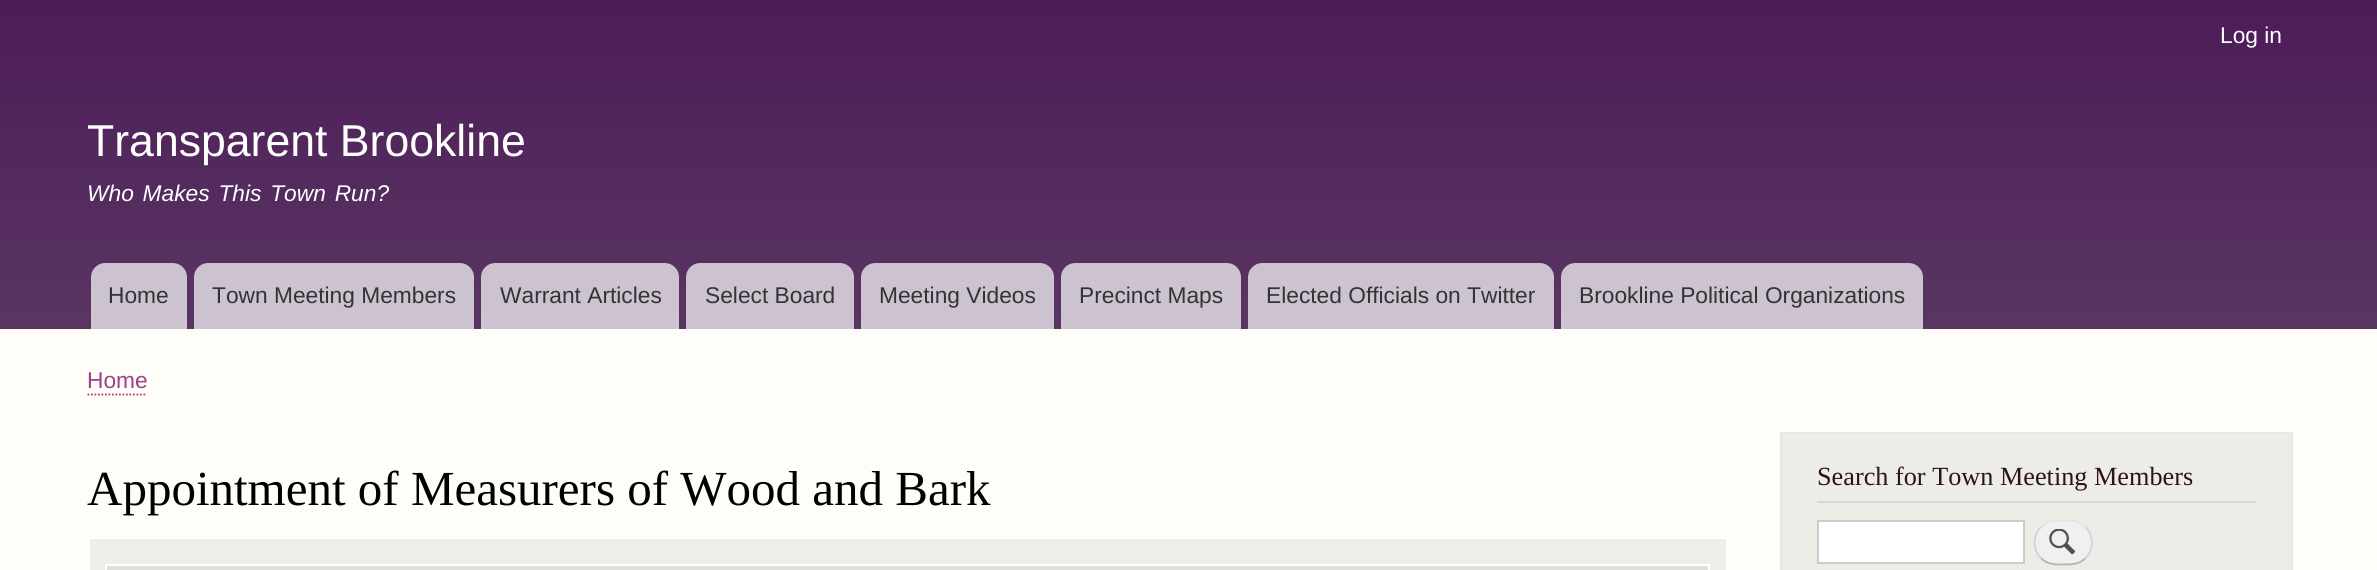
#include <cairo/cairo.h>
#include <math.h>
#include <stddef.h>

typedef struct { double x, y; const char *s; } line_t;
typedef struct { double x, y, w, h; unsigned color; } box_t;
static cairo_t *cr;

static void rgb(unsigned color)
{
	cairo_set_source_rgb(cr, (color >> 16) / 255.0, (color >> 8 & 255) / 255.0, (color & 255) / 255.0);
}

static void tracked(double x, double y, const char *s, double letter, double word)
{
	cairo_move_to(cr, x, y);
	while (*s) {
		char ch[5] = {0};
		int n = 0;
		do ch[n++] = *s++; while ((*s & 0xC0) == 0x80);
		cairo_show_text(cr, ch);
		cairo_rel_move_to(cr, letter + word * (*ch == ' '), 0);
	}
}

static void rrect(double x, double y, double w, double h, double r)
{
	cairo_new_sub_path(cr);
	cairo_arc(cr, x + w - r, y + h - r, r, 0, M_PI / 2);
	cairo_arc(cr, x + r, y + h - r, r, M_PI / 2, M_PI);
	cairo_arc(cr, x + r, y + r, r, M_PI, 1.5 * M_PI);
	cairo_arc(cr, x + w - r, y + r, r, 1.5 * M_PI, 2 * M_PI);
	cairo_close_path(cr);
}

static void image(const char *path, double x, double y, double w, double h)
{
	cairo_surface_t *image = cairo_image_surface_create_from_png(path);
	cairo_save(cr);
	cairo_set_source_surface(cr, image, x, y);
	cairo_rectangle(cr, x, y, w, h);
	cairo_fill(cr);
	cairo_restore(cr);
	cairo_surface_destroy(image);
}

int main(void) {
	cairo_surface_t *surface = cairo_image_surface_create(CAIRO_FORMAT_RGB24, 2377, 570);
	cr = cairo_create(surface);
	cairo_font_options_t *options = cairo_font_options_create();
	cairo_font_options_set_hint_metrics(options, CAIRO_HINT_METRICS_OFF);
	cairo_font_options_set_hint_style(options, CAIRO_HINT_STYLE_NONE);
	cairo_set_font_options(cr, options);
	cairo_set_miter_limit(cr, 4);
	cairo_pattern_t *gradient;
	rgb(0xfffdf7);
	cairo_paint(cr);
	gradient = cairo_pattern_create_linear(1189, 0, 1189, 329);
	cairo_pattern_add_color_stop_rgba(gradient, 0, 0.298, 0.11, 0.345, 1);
	cairo_pattern_add_color_stop_rgba(gradient, 1, 0.349, 0.212, 0.384, 1);
	cairo_set_source(cr, gradient);
	cairo_pattern_destroy(gradient);
	cairo_rectangle(cr, 0, 0, 2377, 329);
	cairo_fill(cr);
	cairo_set_source_rgba(cr, 1, 1, 1, 0.7);
	cairo_new_path(cr);
	cairo_move_to(cr, 105, 263);
	cairo_line_to(cr, 173, 263);
	cairo_curve_to(cr, 180.5, 263, 187, 269.5, 187, 277);
	cairo_line_to(cr, 187, 329);
	cairo_line_to(cr, 91, 329);
	cairo_line_to(cr, 91, 277);
	cairo_curve_to(cr, 91, 269.5, 97.5, 263, 105, 263);
	cairo_close_path(cr);
	cairo_fill(cr);
	cairo_new_path(cr);
	cairo_move_to(cr, 208, 263);
	cairo_line_to(cr, 460, 263);
	cairo_curve_to(cr, 467.5, 263, 474, 269.5, 474, 277);
	cairo_line_to(cr, 474, 329);
	cairo_line_to(cr, 194, 329);
	cairo_line_to(cr, 194, 277);
	cairo_curve_to(cr, 194, 269.5, 200.5, 263, 208, 263);
	cairo_close_path(cr);
	cairo_fill(cr);
	cairo_new_path(cr);
	cairo_move_to(cr, 495, 263);
	cairo_line_to(cr, 665, 263);
	cairo_curve_to(cr, 672.5, 263, 679, 269.5, 679, 277);
	cairo_line_to(cr, 679, 329);
	cairo_line_to(cr, 481, 329);
	cairo_line_to(cr, 481, 277);
	cairo_curve_to(cr, 481, 269.5, 487.5, 263, 495, 263);
	cairo_close_path(cr);
	cairo_fill(cr);
	cairo_new_path(cr);
	cairo_move_to(cr, 700, 263);
	cairo_line_to(cr, 840, 263);
	cairo_curve_to(cr, 847.5, 263, 854, 269.5, 854, 277);
	cairo_line_to(cr, 854, 329);
	cairo_line_to(cr, 686, 329);
	cairo_line_to(cr, 686, 277);
	cairo_curve_to(cr, 686, 269.5, 692.5, 263, 700, 263);
	cairo_close_path(cr);
	cairo_fill(cr);
	cairo_new_path(cr);
	cairo_move_to(cr, 875, 263);
	cairo_line_to(cr, 1040, 263);
	cairo_curve_to(cr, 1047.5, 263, 1054, 269.5, 1054, 277);
	cairo_line_to(cr, 1054, 329);
	cairo_line_to(cr, 861, 329);
	cairo_line_to(cr, 861, 277);
	cairo_curve_to(cr, 861, 269.5, 867.5, 263, 875, 263);
	cairo_close_path(cr);
	cairo_fill(cr);
	cairo_new_path(cr);
	cairo_move_to(cr, 1075, 263);
	cairo_line_to(cr, 1227, 263);
	cairo_curve_to(cr, 1234.5, 263, 1241, 269.5, 1241, 277);
	cairo_line_to(cr, 1241, 329);
	cairo_line_to(cr, 1061, 329);
	cairo_line_to(cr, 1061, 277);
	cairo_curve_to(cr, 1061, 269.5, 1067.5, 263, 1075, 263);
	cairo_close_path(cr);
	cairo_fill(cr);
	cairo_new_path(cr);
	cairo_move_to(cr, 1262, 263);
	cairo_line_to(cr, 1540, 263);
	cairo_curve_to(cr, 1547.5, 263, 1554, 269.5, 1554, 277);
	cairo_line_to(cr, 1554, 329);
	cairo_line_to(cr, 1248, 329);
	cairo_line_to(cr, 1248, 277);
	cairo_curve_to(cr, 1248, 269.5, 1254.5, 263, 1262, 263);
	cairo_close_path(cr);
	cairo_fill(cr);
	cairo_new_path(cr);
	cairo_move_to(cr, 1575, 263);
	cairo_line_to(cr, 1909, 263);
	cairo_curve_to(cr, 1916.5, 263, 1923, 269.5, 1923, 277);
	cairo_line_to(cr, 1923, 329);
	cairo_line_to(cr, 1561, 329);
	cairo_line_to(cr, 1561, 277);
	cairo_curve_to(cr, 1561, 269.5, 1567.5, 263, 1575, 263);
	cairo_close_path(cr);
	cairo_fill(cr);
	cairo_new_path(cr);
	cairo_move_to(cr, 87.5, 394.5);
	cairo_line_to(cr, 147, 394.5);
	rgb(0x9d408d);
	cairo_set_line_width(cr, 1.8);
	cairo_set_dash(cr, (double[]){1.75, 1.75}, 2, 0);
	cairo_stroke(cr);
	{
		static const box_t items[] = {
			{90, 539, 1636, 31, 0xefede7},
			{88, 537, 1639, 2, 0xffffff},
			{1726, 537, 2, 33, 0xffffff},
			{88, 537, 2, 33, 0xffffff},
			{105, 566, 1605, 4, 0xe0ded8},
			{105, 564, 1605, 2, 0xffffff},
			{1708, 564, 2, 6, 0xffffff},
			{105, 564, 2, 6, 0xffffff},
		};
		for (size_t i = 0; i < sizeof items / sizeof *items; i++) {
			rgb(items[i].color);
			cairo_rectangle(cr, items[i].x, items[i].y, items[i].w, items[i].h);
			cairo_fill(cr);
		}
	}
	rgb(0xedede7);
	cairo_rectangle(cr, 1781, 433, 511, 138);
	cairo_fill_preserve(cr);
	rgb(0xe7e7e7);
	cairo_set_line_width(cr, 2);
	cairo_set_dash(cr, NULL, 0, 0);
	cairo_stroke(cr);
	rgb(0xd6d6d6);
	cairo_rectangle(cr, 1817, 501, 439, 2);
	cairo_fill(cr);
	rgb(0xffffff);
	cairo_rectangle(cr, 1818, 521, 206, 42);
	cairo_fill_preserve(cr);
	rgb(0xcccccc);
	cairo_stroke(cr);
	rgb(0xf0f0f0);
	rrect(2034, 520, 59, 45, 22.5);
	cairo_fill(cr);
	image("img/1.png", 2049, 529, 27, 26);
	cairo_new_path(cr);
	cairo_move_to(cr, 2041, 527);
	cairo_curve_to(cr, 2047, 520.5, 2055, 520.5, 2063, 520.5);
	cairo_curve_to(cr, 2071.5, 520.5, 2079.5, 520.5, 2085.5, 527);
	rgb(0xe4e4e4);
	cairo_set_line_width(cr, 1.8);
	cairo_stroke(cr);
	cairo_new_path(cr);
	cairo_move_to(cr, 2085.5, 527);
	cairo_curve_to(cr, 2094, 535.5, 2094, 549.5, 2085.5, 558);
	rgb(0xd2d2d2);
	cairo_stroke(cr);
	cairo_new_path(cr);
	cairo_move_to(cr, 2085.5, 558);
	cairo_curve_to(cr, 2079.5, 564.5, 2071.5, 564.5, 2063, 564.5);
	cairo_curve_to(cr, 2055, 564.5, 2047, 564.5, 2041, 558);
	rgb(0xb4b4b4);
	cairo_stroke(cr);
	cairo_new_path(cr);
	cairo_move_to(cr, 2041, 558);
	cairo_curve_to(cr, 2032.5, 549.5, 2032.5, 535.5, 2041, 527);
	rgb(0xd2d2d2);
	cairo_stroke(cr);
	cairo_select_font_face(cr, "Liberation Sans", CAIRO_FONT_SLANT_NORMAL, CAIRO_FONT_WEIGHT_NORMAL);
	cairo_set_font_size(cr, 22.75);
	rgb(0xffffff);
	cairo_move_to(cr, 2220, 43);
	cairo_show_text(cr, "Log in");
	cairo_set_font_size(cr, 44.6);
	cairo_move_to(cr, 87, 156);
	cairo_show_text(cr, "Transparent Brookline");
	cairo_select_font_face(cr, "Liberation Sans", CAIRO_FONT_SLANT_ITALIC, CAIRO_FONT_WEIGHT_NORMAL);
	cairo_set_font_size(cr, 22.75);
	tracked(87, 201, "Who Makes This Town Run?", 0, 2.5);
	cairo_select_font_face(cr, "Liberation Sans", CAIRO_FONT_SLANT_NORMAL, CAIRO_FONT_WEIGHT_NORMAL);
	rgb(0x333333);
	{
		static const line_t items[] = {
			{108, 303, "Home"},
			{212, 303, "Town Meeting Members"},
			{500, 303, "Warrant Articles"},
			{705, 303, "Select Board"},
			{879, 303, "Meeting Videos"},
			{1079, 303, "Precinct Maps"},
			{1266, 303, "Elected Officials on Twitter"},
			{1579, 303, "Brookline Political Organizations"},
		};
		for (size_t i = 0; i < sizeof items / sizeof *items; i++) {
			cairo_move_to(cr, items[i].x, items[i].y);
			cairo_show_text(cr, items[i].s);
		}
	}
	rgb(0x9d408d);
	cairo_move_to(cr, 87, 388);
	cairo_show_text(cr, "Home");
	cairo_select_font_face(cr, "Liberation Serif", CAIRO_FONT_SLANT_NORMAL, CAIRO_FONT_WEIGHT_NORMAL);
	cairo_set_font_size(cr, 49);
	rgb(0x000000);
	cairo_move_to(cr, 87, 505);
	cairo_show_text(cr, "Appointment of Measurers of Wood and Bark");
	cairo_set_font_size(cr, 26.25);
	rgb(0x301313);
	cairo_move_to(cr, 1817, 485);
	cairo_show_text(cr, "Search for Town Meeting Members");
	cairo_surface_write_to_png(surface, "page.png");
	cairo_font_options_destroy(options);
	cairo_destroy(cr);
	cairo_surface_destroy(surface);
	return 0;
}
